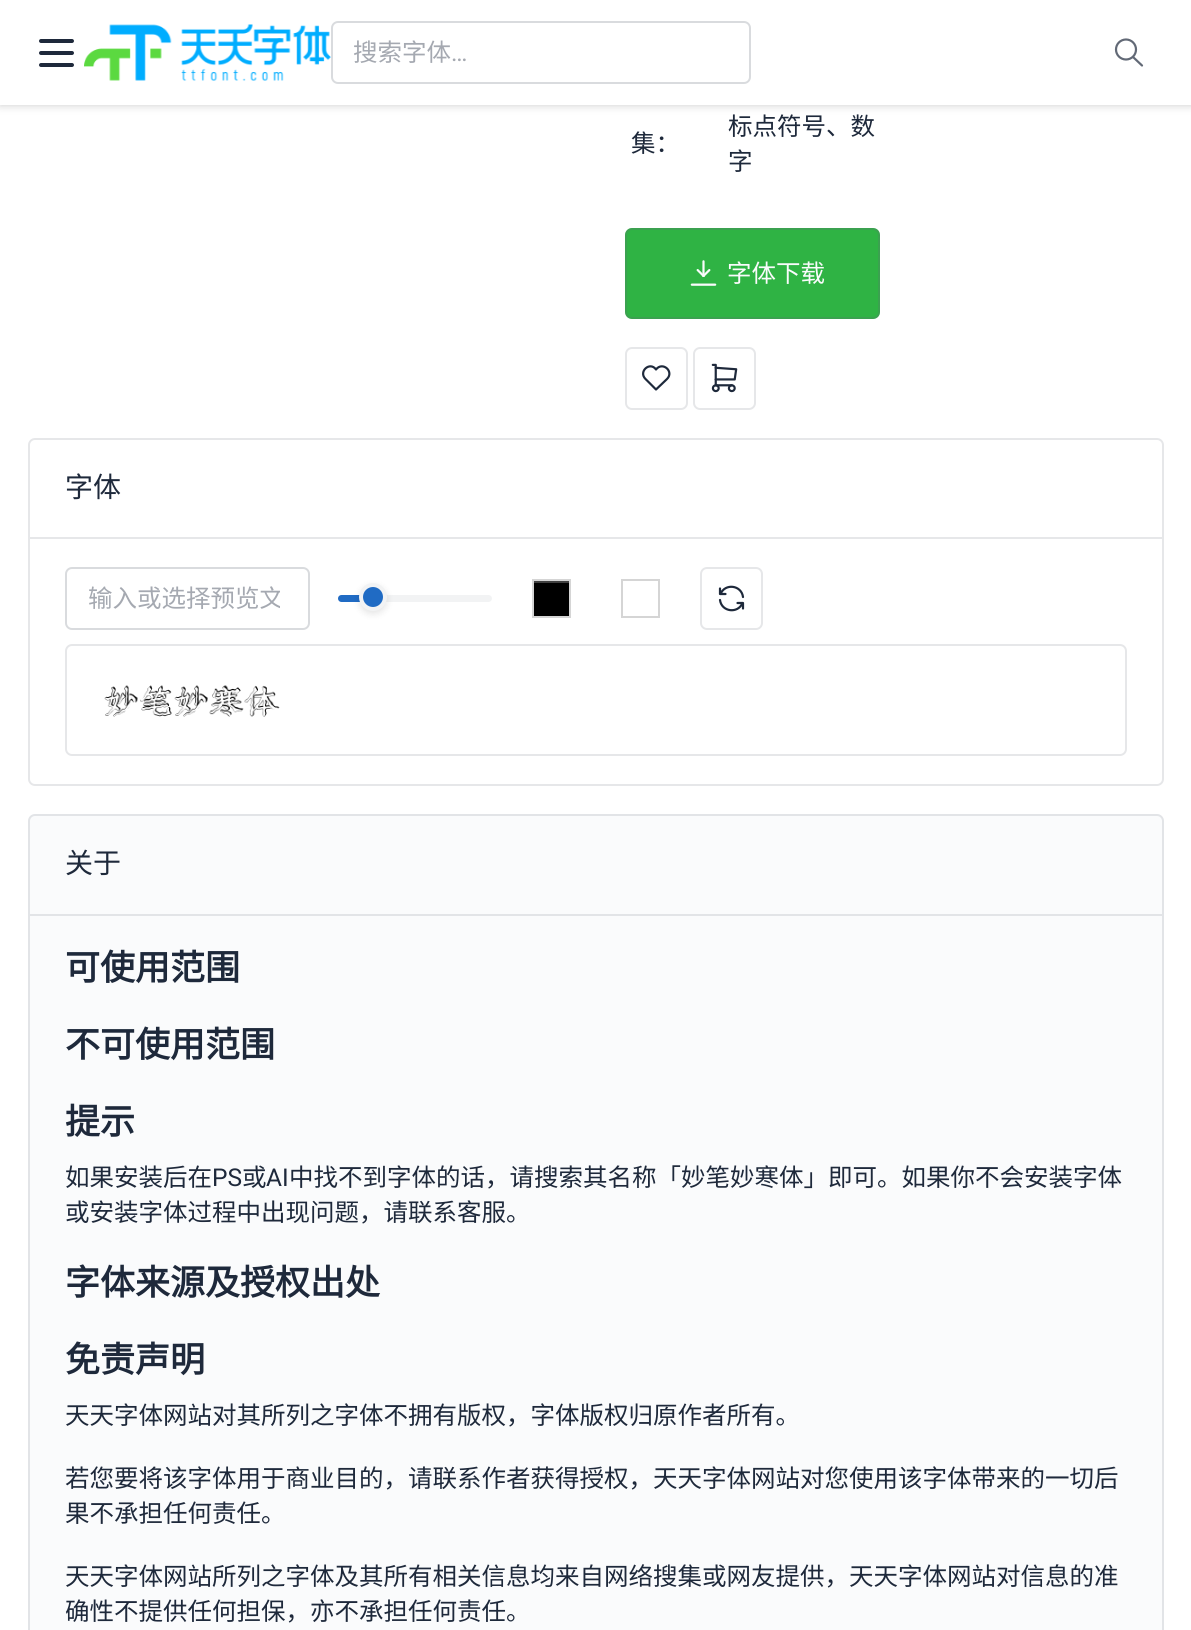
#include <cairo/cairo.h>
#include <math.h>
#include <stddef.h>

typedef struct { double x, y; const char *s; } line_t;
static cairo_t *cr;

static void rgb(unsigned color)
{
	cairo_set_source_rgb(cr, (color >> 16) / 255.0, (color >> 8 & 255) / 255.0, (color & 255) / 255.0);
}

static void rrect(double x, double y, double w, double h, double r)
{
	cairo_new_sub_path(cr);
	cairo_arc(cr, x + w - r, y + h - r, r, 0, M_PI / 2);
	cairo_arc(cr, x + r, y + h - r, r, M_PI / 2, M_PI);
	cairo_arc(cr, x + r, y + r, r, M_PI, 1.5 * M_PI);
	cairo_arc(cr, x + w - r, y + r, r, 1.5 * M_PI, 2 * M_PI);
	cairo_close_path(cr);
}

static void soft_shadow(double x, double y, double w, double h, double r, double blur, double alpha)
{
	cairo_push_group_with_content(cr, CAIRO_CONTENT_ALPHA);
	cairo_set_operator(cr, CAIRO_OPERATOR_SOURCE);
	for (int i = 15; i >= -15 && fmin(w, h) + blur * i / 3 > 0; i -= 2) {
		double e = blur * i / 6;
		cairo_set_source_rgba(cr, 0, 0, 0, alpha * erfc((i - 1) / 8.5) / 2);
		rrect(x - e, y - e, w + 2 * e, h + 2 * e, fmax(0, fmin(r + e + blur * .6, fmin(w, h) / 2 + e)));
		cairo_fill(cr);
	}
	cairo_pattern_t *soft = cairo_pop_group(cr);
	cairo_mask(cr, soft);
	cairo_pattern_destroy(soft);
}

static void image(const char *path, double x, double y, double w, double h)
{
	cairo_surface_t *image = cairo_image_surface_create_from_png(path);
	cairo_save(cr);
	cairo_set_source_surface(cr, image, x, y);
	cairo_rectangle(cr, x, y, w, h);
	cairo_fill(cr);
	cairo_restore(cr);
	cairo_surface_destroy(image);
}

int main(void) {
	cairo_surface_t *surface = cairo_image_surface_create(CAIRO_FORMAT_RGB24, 1191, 1630);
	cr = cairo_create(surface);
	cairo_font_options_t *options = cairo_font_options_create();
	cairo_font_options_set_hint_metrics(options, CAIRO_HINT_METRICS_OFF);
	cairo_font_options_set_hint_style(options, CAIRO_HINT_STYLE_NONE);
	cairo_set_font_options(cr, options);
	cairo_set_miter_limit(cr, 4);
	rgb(0xffffff);
	cairo_paint(cr);
	rgb(0xcccccc);
	soft_shadow(0, 0, 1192, 105, 0, 4.5, 1);
	rgb(0xffffff);
	cairo_rectangle(cr, 0, 0, 1191, 105);
	cairo_fill(cr);
	rgb(0x1e293b);
	rrect(39, 51, 35, 4, 2);
	cairo_fill(cr);
	rrect(39, 39, 35, 4, 2);
	cairo_fill(cr);
	rrect(39, 63, 35, 4, 2);
	cairo_fill(cr);
	image("img/1.png", 84, 24, 247, 57);
	rrect(332, 22, 418, 61, 6);
	rgb(0xd9dbde);
	cairo_stroke(cr);
	cairo_arc(cr, 1126, 49.5, 10, 0, 2 * M_PI);
	rgb(0x626976);
	cairo_set_line_width(cr, 2.2);
	cairo_stroke(cr);
	cairo_new_path(cr);
	cairo_move_to(cr, 1142, 65.5);
	cairo_line_to(cr, 1133, 57);
	cairo_set_line_cap(cr, CAIRO_LINE_CAP_ROUND);
	cairo_set_line_join(cr, CAIRO_LINE_JOIN_ROUND);
	cairo_stroke(cr);
	rgb(0x2fb344);
	rrect(625, 228, 255, 91, 7);
	cairo_fill(cr);
	rrect(626, 229, 253, 89, 6);
	cairo_set_source_rgba(cr, 0.384, 0.412, 0.463, 0.24);
	cairo_set_line_width(cr, 2);
	cairo_set_line_cap(cr, CAIRO_LINE_CAP_BUTT);
	cairo_set_line_join(cr, CAIRO_LINE_JOIN_MITER);
	cairo_stroke(cr);
	image("img/2.png", 690, 260, 27, 26);
	rrect(626, 348, 61, 61, 6);
	rgb(0xe6e7e9);
	cairo_stroke(cr);
	cairo_new_path(cr);
	cairo_move_to(cr, 667, 379);
	cairo_line_to(cr, 656, 389.5);
	cairo_line_to(cr, 645.5, 379);
	cairo_move_to(cr, 645.5, 379);
	cairo_curve_to(cr, 638, 371.5, 650, 361, 656, 369.5);
	cairo_curve_to(cr, 662.5, 361, 674.5, 371.5, 667, 379);
	rgb(0x1e293b);
	cairo_set_line_width(cr, 2.2);
	cairo_set_line_cap(cr, CAIRO_LINE_CAP_ROUND);
	cairo_set_line_join(cr, CAIRO_LINE_JOIN_ROUND);
	cairo_stroke(cr);
	rrect(694, 348, 61, 61, 6);
	rgb(0xe6e7e9);
	cairo_set_line_width(cr, 2);
	cairo_set_line_cap(cr, CAIRO_LINE_CAP_BUTT);
	cairo_set_line_join(cr, CAIRO_LINE_JOIN_MITER);
	cairo_stroke(cr);
	image("img/3.png", 711, 363, 27, 30);
	rrect(29, 439, 1134, 346, 6);
	cairo_set_source_rgba(cr, 0.384, 0.412, 0.463, 0.16);
	cairo_stroke(cr);
	rgb(0xe6e7e9);
	cairo_rectangle(cr, 30, 537, 1132, 2);
	cairo_fill(cr);
	rrect(66, 568, 243, 61, 6);
	rgb(0xd9dbde);
	cairo_stroke(cr);
	rgb(0xf2f3f4);
	rrect(338, 595, 154, 7, 3.5);
	cairo_fill(cr);
	rgb(0x206bc4);
	cairo_new_path(cr);
	cairo_move_to(cr, 341.5, 595);
	cairo_line_to(cr, 373, 595);
	cairo_line_to(cr, 373, 602);
	cairo_line_to(cr, 341.5, 602);
	cairo_curve_to(cr, 339.5, 602, 338, 600.5, 338, 598.5);
	cairo_curve_to(cr, 338, 596.5, 339.5, 595, 341.5, 595);
	cairo_close_path(cr);
	cairo_fill(cr);
	rgb(0x000000);
	soft_shadow(359, 586, 28, 28, 14, 3.5, 0.1);
	rgb(0x206bc4);
	cairo_arc(cr, 373, 597, 12, 0, 2 * M_PI);
	cairo_fill_preserve(cr);
	rgb(0xf2f3f4);
	cairo_set_line_width(cr, 4);
	cairo_stroke(cr);
	rgb(0x000000);
	cairo_rectangle(cr, 534, 583, 35, 33);
	cairo_fill(cr);
	rgb(0x404040);
	cairo_rectangle(cr, 534, 581, 35, 2);
	cairo_fill(cr);
	cairo_rectangle(cr, 533, 580, 37, 37);
	rgb(0xd5d5d5);
	cairo_set_line_width(cr, 2);
	cairo_stroke(cr);
	cairo_rectangle(cr, 622, 580, 37, 37);
	cairo_stroke(cr);
	rrect(701, 568, 61, 61, 6);
	rgb(0xe6e7e9);
	cairo_stroke(cr);
	cairo_new_path(cr);
	cairo_move_to(cr, 743, 597);
	cairo_curve_to(cr, 741.5, 585, 725, 583, 720.5, 594);
	cairo_move_to(cr, 720, 588.5);
	cairo_line_to(cr, 720, 594);
	cairo_line_to(cr, 725.5, 594);
	cairo_move_to(cr, 720, 600);
	cairo_curve_to(cr, 721.5, 612, 738, 614, 742.5, 603);
	cairo_move_to(cr, 743, 608.5);
	cairo_line_to(cr, 743, 603);
	cairo_line_to(cr, 737.5, 603);
	rgb(0x1e293b);
	cairo_set_line_width(cr, 2.2);
	cairo_set_line_cap(cr, CAIRO_LINE_CAP_ROUND);
	cairo_set_line_join(cr, CAIRO_LINE_JOIN_ROUND);
	cairo_stroke(cr);
	rrect(66, 645, 1060, 110, 6);
	rgb(0xe6e7e9);
	cairo_set_line_width(cr, 2);
	cairo_set_line_cap(cr, CAIRO_LINE_CAP_BUTT);
	cairo_set_line_join(cr, CAIRO_LINE_JOIN_MITER);
	cairo_stroke(cr);
	image("img/4.png", 104, 685, 176, 32);
	rgb(0xfafbfc);
	rrect(29, 815, 1134, 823, 6);
	cairo_fill_preserve(cr);
	rgb(0xe2e4e7);
	cairo_stroke(cr);
	cairo_rectangle(cr, 30, 914, 1132, 2);
	cairo_fill(cr);
	cairo_select_font_face(cr, "Noto Sans CJK SC", CAIRO_FONT_SLANT_NORMAL, CAIRO_FONT_WEIGHT_NORMAL);
	cairo_set_font_size(cr, 24.5);
	rgb(0xa5a9b1);
	cairo_move_to(cr, 353, 61);
	cairo_show_text(cr, "搜索字体");
	cairo_select_font_face(cr, "Roboto", CAIRO_FONT_SLANT_NORMAL, CAIRO_FONT_WEIGHT_NORMAL);
	cairo_move_to(cr, 451, 61);
	cairo_show_text(cr, "…");
	cairo_select_font_face(cr, "Noto Sans CJK SC", CAIRO_FONT_SLANT_NORMAL, CAIRO_FONT_WEIGHT_NORMAL);
	rgb(0x1e293b);
	{
		static const line_t items[] = {
			{631, 152, "集："},
			{728, 135, "标点符号、数"},
			{728, 170, "字"},
		};
		for (size_t i = 0; i < sizeof items / sizeof *items; i++) {
			cairo_move_to(cr, items[i].x, items[i].y);
			cairo_show_text(cr, items[i].s);
		}
	}
	rgb(0xfafbfc);
	cairo_move_to(cr, 727, 282);
	cairo_show_text(cr, "字体下载");
	cairo_set_font_size(cr, 28);
	rgb(0x1e293b);
	cairo_move_to(cr, 65, 497);
	cairo_show_text(cr, "字体");
	cairo_save(cr);
	cairo_rectangle(cr, 88, 579, 192, 35);
	cairo_clip(cr);
	cairo_set_font_size(cr, 24.5);
	rgb(0xa5a9b1);
	cairo_move_to(cr, 88, 607);
	cairo_show_text(cr, "输入或选择预览文");
	cairo_restore(cr);
	cairo_move_to(cr, 65, 873);
	cairo_show_text(cr, "关于");
	cairo_select_font_face(cr, "Noto Sans CJK SC", CAIRO_FONT_SLANT_NORMAL, CAIRO_FONT_WEIGHT_BOLD);
	cairo_set_font_size(cr, 35);
	{
		static const line_t items[] = {
			{65, 980, "可使用范围"},
			{65, 1057, "不可使用范围"},
			{65, 1134, "提示"},
		};
		for (size_t i = 0; i < sizeof items / sizeof *items; i++) {
			cairo_move_to(cr, items[i].x, items[i].y);
			cairo_show_text(cr, items[i].s);
		}
	}
	cairo_select_font_face(cr, "Noto Sans CJK SC", CAIRO_FONT_SLANT_NORMAL, CAIRO_FONT_WEIGHT_NORMAL);
	cairo_set_font_size(cr, 24.5);
	cairo_move_to(cr, 65, 1186);
	cairo_show_text(cr, "如果安装后在");
	cairo_select_font_face(cr, "Roboto", CAIRO_FONT_SLANT_NORMAL, CAIRO_FONT_WEIGHT_NORMAL);
	cairo_move_to(cr, 212, 1186);
	cairo_show_text(cr, "PS");
	cairo_select_font_face(cr, "Noto Sans CJK SC", CAIRO_FONT_SLANT_NORMAL, CAIRO_FONT_WEIGHT_NORMAL);
	cairo_move_to(cr, 242, 1186);
	cairo_show_text(cr, "或");
	cairo_select_font_face(cr, "Roboto", CAIRO_FONT_SLANT_NORMAL, CAIRO_FONT_WEIGHT_NORMAL);
	cairo_move_to(cr, 266, 1186);
	cairo_show_text(cr, "AI");
	cairo_select_font_face(cr, "Noto Sans CJK SC", CAIRO_FONT_SLANT_NORMAL, CAIRO_FONT_WEIGHT_NORMAL);
	cairo_move_to(cr, 289, 1186);
	cairo_show_text(cr, "中找不到字体的话，请搜索其名称「妙笔妙寒体」即可。如果你不会安装字体");
	cairo_move_to(cr, 65, 1221);
	cairo_show_text(cr, "或安装字体过程中出现问题，请联系客服。");
	cairo_select_font_face(cr, "Noto Sans CJK SC", CAIRO_FONT_SLANT_NORMAL, CAIRO_FONT_WEIGHT_BOLD);
	cairo_set_font_size(cr, 35);
	cairo_move_to(cr, 65, 1295);
	cairo_show_text(cr, "字体来源及授权出处");
	cairo_move_to(cr, 65, 1372);
	cairo_show_text(cr, "免责声明");
	cairo_select_font_face(cr, "Noto Sans CJK SC", CAIRO_FONT_SLANT_NORMAL, CAIRO_FONT_WEIGHT_NORMAL);
	cairo_set_font_size(cr, 24.5);
	{
		static const line_t items[] = {
			{65, 1424, "天天字体网站对其所列之字体不拥有版权，字体版权归原作者所有。"},
			{65, 1487, "若您要将该字体用于商业目的，请联系作者获得授权，天天字体网站对您使用该字体带来的一切后"},
			{65, 1522, "果不承担任何责任。"},
			{65, 1585, "天天字体网站所列之字体及其所有相关信息均来自网络搜集或网友提供，天天字体网站对信息的准"},
			{65, 1620, "确性不提供任何担保，亦不承担任何责任。"},
		};
		for (size_t i = 0; i < sizeof items / sizeof *items; i++) {
			cairo_move_to(cr, items[i].x, items[i].y);
			cairo_show_text(cr, items[i].s);
		}
	}
	cairo_surface_write_to_png(surface, "page.png");
	cairo_font_options_destroy(options);
	cairo_destroy(cr);
	cairo_surface_destroy(surface);
	return 0;
}
